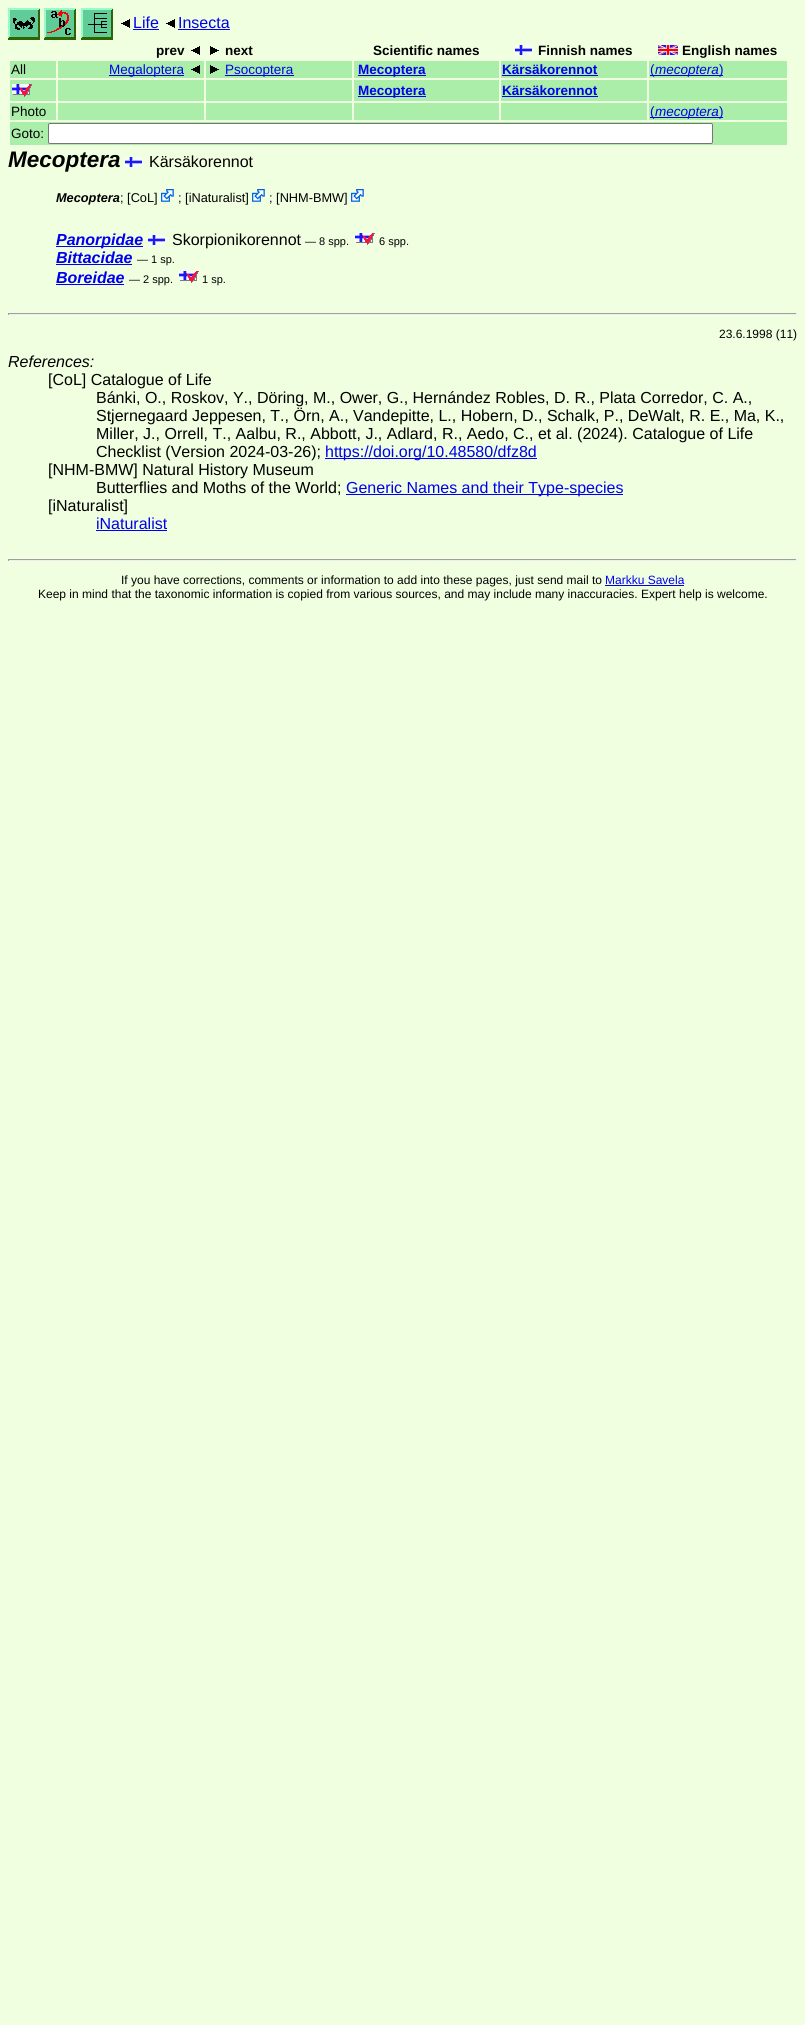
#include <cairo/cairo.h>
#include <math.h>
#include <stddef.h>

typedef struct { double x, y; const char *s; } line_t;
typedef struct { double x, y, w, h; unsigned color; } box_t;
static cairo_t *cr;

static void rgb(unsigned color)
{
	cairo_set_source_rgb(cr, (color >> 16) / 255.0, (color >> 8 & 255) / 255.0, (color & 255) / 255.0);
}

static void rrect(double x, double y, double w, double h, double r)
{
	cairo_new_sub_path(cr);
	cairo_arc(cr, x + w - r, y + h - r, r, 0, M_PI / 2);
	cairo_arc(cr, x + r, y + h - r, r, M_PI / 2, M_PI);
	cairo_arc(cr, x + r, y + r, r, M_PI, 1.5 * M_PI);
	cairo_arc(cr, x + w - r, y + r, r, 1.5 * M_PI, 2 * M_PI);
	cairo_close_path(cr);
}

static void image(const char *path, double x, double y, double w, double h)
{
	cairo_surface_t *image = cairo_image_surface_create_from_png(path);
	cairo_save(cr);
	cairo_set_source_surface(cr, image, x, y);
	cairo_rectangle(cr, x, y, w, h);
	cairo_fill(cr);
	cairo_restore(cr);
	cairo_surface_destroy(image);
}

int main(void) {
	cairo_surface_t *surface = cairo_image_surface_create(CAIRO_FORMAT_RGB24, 805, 2025);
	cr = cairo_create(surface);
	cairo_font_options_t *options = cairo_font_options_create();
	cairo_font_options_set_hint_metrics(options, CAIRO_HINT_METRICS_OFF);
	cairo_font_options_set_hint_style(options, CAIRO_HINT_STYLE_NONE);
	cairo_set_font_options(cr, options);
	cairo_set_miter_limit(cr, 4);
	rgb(0xf0ffe0);
	cairo_paint(cr);
	image("img/1.png", 8, 8, 32, 32);
	image("img/2.png", 44, 8, 32, 32);
	image("img/3.png", 81, 8, 32, 32);
	image("img/4.png", 121, 19, 9, 9);
	rgb(0x0000ee);
	cairo_rectangle(cr, 133, 29, 26, 1);
	cairo_fill(cr);
	image("img/4.png", 166, 19, 9, 9);
	cairo_rectangle(cr, 178, 29, 52, 1);
	cairo_fill(cr);
	image("img/4.png", 191, 46, 9, 9);
	image("img/5.png", 210, 46, 9, 9);
	image("img/6.png", 515, 45, 17, 10);
	image("img/7.png", 658, 45, 20, 10);
	{
		static const box_t items[] = {
			{10, 61, 46, 17, 0xaaeeaa},
			{58, 61, 146, 17, 0xaaeeaa},
			{109, 75, 75, 1, 0x0000ee},
		};
		for (size_t i = 0; i < sizeof items / sizeof *items; i++) {
			rgb(items[i].color);
			cairo_rectangle(cr, items[i].x, items[i].y, items[i].w, items[i].h);
			cairo_fill(cr);
		}
	}
	image("img/8.png", 191, 65, 9, 9);
	rgb(0xaaeeaa);
	cairo_rectangle(cr, 206, 61, 146, 17);
	cairo_fill(cr);
	image("img/9.png", 210, 65, 9, 9);
	{
		static const box_t items[] = {
			{225, 75, 69, 1, 0x0000ee},
			{354, 61, 145, 17, 0xaaeeaa},
			{358, 75, 68, 1, 0x0000ee},
			{501, 61, 146, 17, 0xaaeeaa},
			{502, 75, 96, 1, 0x0000ee},
			{649, 61, 138, 17, 0xaaeeaa},
			{650, 75, 73, 1, 0x0000ee},
			{10, 80, 46, 21, 0xaaeeaa},
		};
		for (size_t i = 0; i < sizeof items / sizeof *items; i++) {
			rgb(items[i].color);
			cairo_rectangle(cr, items[i].x, items[i].y, items[i].w, items[i].h);
			cairo_fill(cr);
		}
	}
	image("img/10.png", 12, 84, 20, 13);
	{
		static const box_t items[] = {
			{58, 80, 146, 21, 0xaaeeaa},
			{206, 80, 146, 21, 0xaaeeaa},
			{354, 80, 145, 21, 0xaaeeaa},
			{358, 96, 68, 1, 0x0000ee},
			{501, 80, 146, 21, 0xaaeeaa},
			{502, 96, 96, 1, 0x0000ee},
			{649, 80, 138, 21, 0xaaeeaa},
			{10, 103, 46, 17, 0xaaeeaa},
			{58, 103, 146, 17, 0xaaeeaa},
			{206, 103, 146, 17, 0xaaeeaa},
			{354, 103, 145, 17, 0xaaeeaa},
			{501, 103, 146, 17, 0xaaeeaa},
			{649, 103, 138, 17, 0xaaeeaa},
			{650, 117, 73, 1, 0x0000ee},
			{10, 122, 777, 23, 0xaaeeaa},
		};
		for (size_t i = 0; i < sizeof items / sizeof *items; i++) {
			rgb(items[i].color);
			cairo_rectangle(cr, items[i].x, items[i].y, items[i].w, items[i].h);
			cairo_fill(cr);
		}
	}
	rgb(0xffffff);
	rrect(48.5, 123.5, 664, 20, 1.5);
	cairo_fill_preserve(cr);
	rgb(0x767676);
	cairo_set_line_width(cr, 1);
	cairo_stroke(cr);
	image("img/6.png", 125, 157, 17, 10);
	image("img/11.png", 161, 189, 13, 13);
	image("img/11.png", 252, 189, 13, 13);
	image("img/11.png", 351, 189, 13, 13);
	rgb(0x0000ee);
	cairo_rectangle(cr, 56, 246, 87, 1);
	cairo_fill(cr);
	image("img/6.png", 148, 235, 17, 10);
	image("img/12.png", 355, 233, 20, 12);
	cairo_rectangle(cr, 56, 264, 76, 1);
	cairo_fill(cr);
	cairo_rectangle(cr, 56, 284, 68, 1);
	cairo_fill(cr);
	image("img/12.png", 179, 271, 20, 12);
	{
		static const box_t items[] = {
			{8, 313, 789, 1, 0x9f9f9f},
			{796, 313, 1, 2, 0xeeeeee},
			{8, 314, 789, 1, 0xeeeeee},
			{8, 313, 1, 2, 0x9f9f9f},
			{325, 458, 212, 1, 0x0000ee},
			{346, 494, 277, 1, 0x0000ee},
			{96, 530, 71, 1, 0x0000ee},
			{8, 559, 789, 1, 0x9f9f9f},
			{796, 559, 1, 2, 0xeeeeee},
			{8, 560, 789, 1, 0xeeeeee},
			{8, 559, 1, 2, 0x9f9f9f},
			{605, 585, 79, 1, 0x0000ee},
		};
		for (size_t i = 0; i < sizeof items / sizeof *items; i++) {
			rgb(items[i].color);
			cairo_rectangle(cr, items[i].x, items[i].y, items[i].w, items[i].h);
			cairo_fill(cr);
		}
	}
	cairo_select_font_face(cr, "Liberation Sans", CAIRO_FONT_SLANT_NORMAL, CAIRO_FONT_WEIGHT_NORMAL);
	cairo_set_font_size(cr, 16);
	cairo_move_to(cr, 133, 28);
	cairo_show_text(cr, "Life");
	cairo_move_to(cr, 178, 28);
	cairo_show_text(cr, "Insecta");
	cairo_select_font_face(cr, "Liberation Sans", CAIRO_FONT_SLANT_NORMAL, CAIRO_FONT_WEIGHT_BOLD);
	cairo_set_font_size(cr, 13.5);
	rgb(0x000000);
	{
		static const line_t items[] = {
			{156, 55, "prev"},
			{225, 55, "next"},
			{373, 55, "Scientific names"},
			{538, 55, "Finnish names"},
			{682, 55, "English names"},
		};
		for (size_t i = 0; i < sizeof items / sizeof *items; i++) {
			cairo_move_to(cr, items[i].x, items[i].y);
			cairo_show_text(cr, items[i].s);
		}
	}
	cairo_select_font_face(cr, "Liberation Sans", CAIRO_FONT_SLANT_NORMAL, CAIRO_FONT_WEIGHT_NORMAL);
	cairo_move_to(cr, 11, 74);
	cairo_show_text(cr, "All");
	rgb(0x0000ee);
	cairo_move_to(cr, 109, 74);
	cairo_show_text(cr, "Megaloptera");
	cairo_move_to(cr, 225, 74);
	cairo_show_text(cr, "Psocoptera");
	cairo_select_font_face(cr, "Liberation Sans", CAIRO_FONT_SLANT_NORMAL, CAIRO_FONT_WEIGHT_BOLD);
	cairo_move_to(cr, 358, 74);
	cairo_show_text(cr, "Mecoptera");
	cairo_move_to(cr, 502, 74);
	cairo_show_text(cr, "Kärsäkorennot");
	cairo_select_font_face(cr, "Liberation Sans", CAIRO_FONT_SLANT_NORMAL, CAIRO_FONT_WEIGHT_NORMAL);
	cairo_move_to(cr, 650, 74);
	cairo_show_text(cr, "(");
	cairo_select_font_face(cr, "Liberation Sans", CAIRO_FONT_SLANT_ITALIC, CAIRO_FONT_WEIGHT_NORMAL);
	cairo_move_to(cr, 655, 74);
	cairo_show_text(cr, "mecoptera");
	cairo_select_font_face(cr, "Liberation Sans", CAIRO_FONT_SLANT_NORMAL, CAIRO_FONT_WEIGHT_NORMAL);
	cairo_move_to(cr, 719, 74);
	cairo_show_text(cr, ")");
	cairo_select_font_face(cr, "Liberation Sans", CAIRO_FONT_SLANT_NORMAL, CAIRO_FONT_WEIGHT_BOLD);
	cairo_move_to(cr, 358, 95);
	cairo_show_text(cr, "Mecoptera");
	cairo_move_to(cr, 502, 95);
	cairo_show_text(cr, "Kärsäkorennot");
	cairo_select_font_face(cr, "Liberation Sans", CAIRO_FONT_SLANT_NORMAL, CAIRO_FONT_WEIGHT_NORMAL);
	rgb(0x000000);
	cairo_move_to(cr, 11, 116);
	cairo_show_text(cr, "Photo");
	rgb(0x0000ee);
	cairo_move_to(cr, 650, 116);
	cairo_show_text(cr, "(");
	cairo_select_font_face(cr, "Liberation Sans", CAIRO_FONT_SLANT_ITALIC, CAIRO_FONT_WEIGHT_NORMAL);
	cairo_move_to(cr, 655, 116);
	cairo_show_text(cr, "mecoptera");
	cairo_select_font_face(cr, "Liberation Sans", CAIRO_FONT_SLANT_NORMAL, CAIRO_FONT_WEIGHT_NORMAL);
	cairo_move_to(cr, 719, 116);
	cairo_show_text(cr, ")");
	rgb(0x000000);
	cairo_move_to(cr, 11, 138);
	cairo_show_text(cr, "Goto:");
	cairo_select_font_face(cr, "Liberation Sans", CAIRO_FONT_SLANT_ITALIC, CAIRO_FONT_WEIGHT_BOLD);
	cairo_set_font_size(cr, 22.5);
	cairo_move_to(cr, 8, 167);
	cairo_show_text(cr, "Mecoptera");
	cairo_select_font_face(cr, "Liberation Sans", CAIRO_FONT_SLANT_NORMAL, CAIRO_FONT_WEIGHT_NORMAL);
	cairo_set_font_size(cr, 16);
	cairo_move_to(cr, 149, 167);
	cairo_show_text(cr, "Kärsäkorennot");
	cairo_select_font_face(cr, "Liberation Sans", CAIRO_FONT_SLANT_ITALIC, CAIRO_FONT_WEIGHT_BOLD);
	cairo_set_font_size(cr, 12.75);
	cairo_move_to(cr, 56, 202);
	cairo_show_text(cr, "Mecoptera");
	cairo_select_font_face(cr, "Liberation Sans", CAIRO_FONT_SLANT_NORMAL, CAIRO_FONT_WEIGHT_NORMAL);
	{
		static const line_t items[] = {
			{120, 202, "; [CoL]"},
			{178, 202, "; [iNaturalist]"},
			{269, 202, "; [NHM-BMW]"},
		};
		for (size_t i = 0; i < sizeof items / sizeof *items; i++) {
			cairo_move_to(cr, items[i].x, items[i].y);
			cairo_show_text(cr, items[i].s);
		}
	}
	cairo_select_font_face(cr, "Liberation Sans", CAIRO_FONT_SLANT_ITALIC, CAIRO_FONT_WEIGHT_BOLD);
	cairo_set_font_size(cr, 16);
	rgb(0x0000ee);
	cairo_move_to(cr, 56, 245);
	cairo_show_text(cr, "Panorpidae");
	cairo_select_font_face(cr, "Liberation Sans", CAIRO_FONT_SLANT_NORMAL, CAIRO_FONT_WEIGHT_NORMAL);
	rgb(0x000000);
	cairo_move_to(cr, 172, 245);
	cairo_show_text(cr, "Skorpionikorennot");
	cairo_set_font_size(cr, 11);
	cairo_move_to(cr, 305, 245);
	cairo_show_text(cr, "— 8 spp.");
	cairo_move_to(cr, 379, 245);
	cairo_show_text(cr, "6 spp.");
	cairo_select_font_face(cr, "Liberation Sans", CAIRO_FONT_SLANT_ITALIC, CAIRO_FONT_WEIGHT_BOLD);
	cairo_set_font_size(cr, 16);
	rgb(0x0000ee);
	cairo_move_to(cr, 56, 263);
	cairo_show_text(cr, "Bittacidae");
	cairo_select_font_face(cr, "Liberation Sans", CAIRO_FONT_SLANT_NORMAL, CAIRO_FONT_WEIGHT_NORMAL);
	cairo_set_font_size(cr, 11);
	rgb(0x000000);
	cairo_move_to(cr, 137, 263);
	cairo_show_text(cr, "— 1 sp.");
	cairo_select_font_face(cr, "Liberation Sans", CAIRO_FONT_SLANT_ITALIC, CAIRO_FONT_WEIGHT_BOLD);
	cairo_set_font_size(cr, 16);
	rgb(0x0000ee);
	cairo_move_to(cr, 56, 283);
	cairo_show_text(cr, "Boreidae");
	cairo_select_font_face(cr, "Liberation Sans", CAIRO_FONT_SLANT_NORMAL, CAIRO_FONT_WEIGHT_NORMAL);
	cairo_set_font_size(cr, 11);
	rgb(0x000000);
	cairo_move_to(cr, 129, 283);
	cairo_show_text(cr, "— 2 spp.");
	cairo_move_to(cr, 202, 283);
	cairo_show_text(cr, "1 sp.");
	cairo_set_font_size(cr, 12);
	cairo_move_to(cr, 719, 338);
	cairo_show_text(cr, "23.6.1998 (11)");
	cairo_select_font_face(cr, "Liberation Sans", CAIRO_FONT_SLANT_ITALIC, CAIRO_FONT_WEIGHT_NORMAL);
	cairo_set_font_size(cr, 16);
	cairo_move_to(cr, 8, 367);
	cairo_show_text(cr, "References:");
	cairo_select_font_face(cr, "Liberation Sans", CAIRO_FONT_SLANT_NORMAL, CAIRO_FONT_WEIGHT_NORMAL);
	{
		static const line_t items[] = {
			{48, 385, "[CoL] Catalogue of Life"},
			{96, 403, "Bánki, O., Roskov, Y., Döring, M., Ower, G., Hernández Robles, D. R., Plata Corredor, C. A.,"},
			{96, 421, "Stjernegaard Jeppesen, T., Örn, A., Vandepitte, L., Hobern, D., Schalk, P., DeWalt, R. E., Ma, K.,"},
			{96, 439, "Miller, J., Orrell, T., Aalbu, R., Abbott, J., Adlard, R., Aedo, C., et al. (2024). Catalogue of Life"},
			{96, 457, "Checklist (Version 2024-03-26);"},
		};
		for (size_t i = 0; i < sizeof items / sizeof *items; i++) {
			cairo_move_to(cr, items[i].x, items[i].y);
			cairo_show_text(cr, items[i].s);
		}
	}
	rgb(0x0000ee);
	cairo_move_to(cr, 325, 457);
	cairo_show_text(cr, "https://doi.org/10.48580/dfz8d");
	rgb(0x000000);
	cairo_move_to(cr, 48, 475);
	cairo_show_text(cr, "[NHM-BMW] Natural History Museum");
	cairo_move_to(cr, 96, 493);
	cairo_show_text(cr, "Butterflies and Moths of the World;");
	rgb(0x0000ee);
	cairo_move_to(cr, 346, 493);
	cairo_show_text(cr, "Generic Names and their Type-species");
	rgb(0x000000);
	cairo_move_to(cr, 48, 511);
	cairo_show_text(cr, "[iNaturalist]");
	rgb(0x0000ee);
	cairo_move_to(cr, 96, 529);
	cairo_show_text(cr, "iNaturalist");
	cairo_set_font_size(cr, 12);
	rgb(0x000000);
	cairo_move_to(cr, 121, 584);
	cairo_show_text(cr, "If you have corrections, comments or information to add into these pages, just send mail to");
	rgb(0x0000ee);
	cairo_move_to(cr, 605, 584);
	cairo_show_text(cr, "Markku Savela");
	rgb(0x000000);
	cairo_move_to(cr, 38, 598);
	cairo_show_text(cr, "Keep in mind that the taxonomic information is copied from various sources, and may include many inaccuracies. Expert help is welcome.");
	cairo_surface_write_to_png(surface, "page.png");
	cairo_font_options_destroy(options);
	cairo_destroy(cr);
	cairo_surface_destroy(surface);
	return 0;
}
